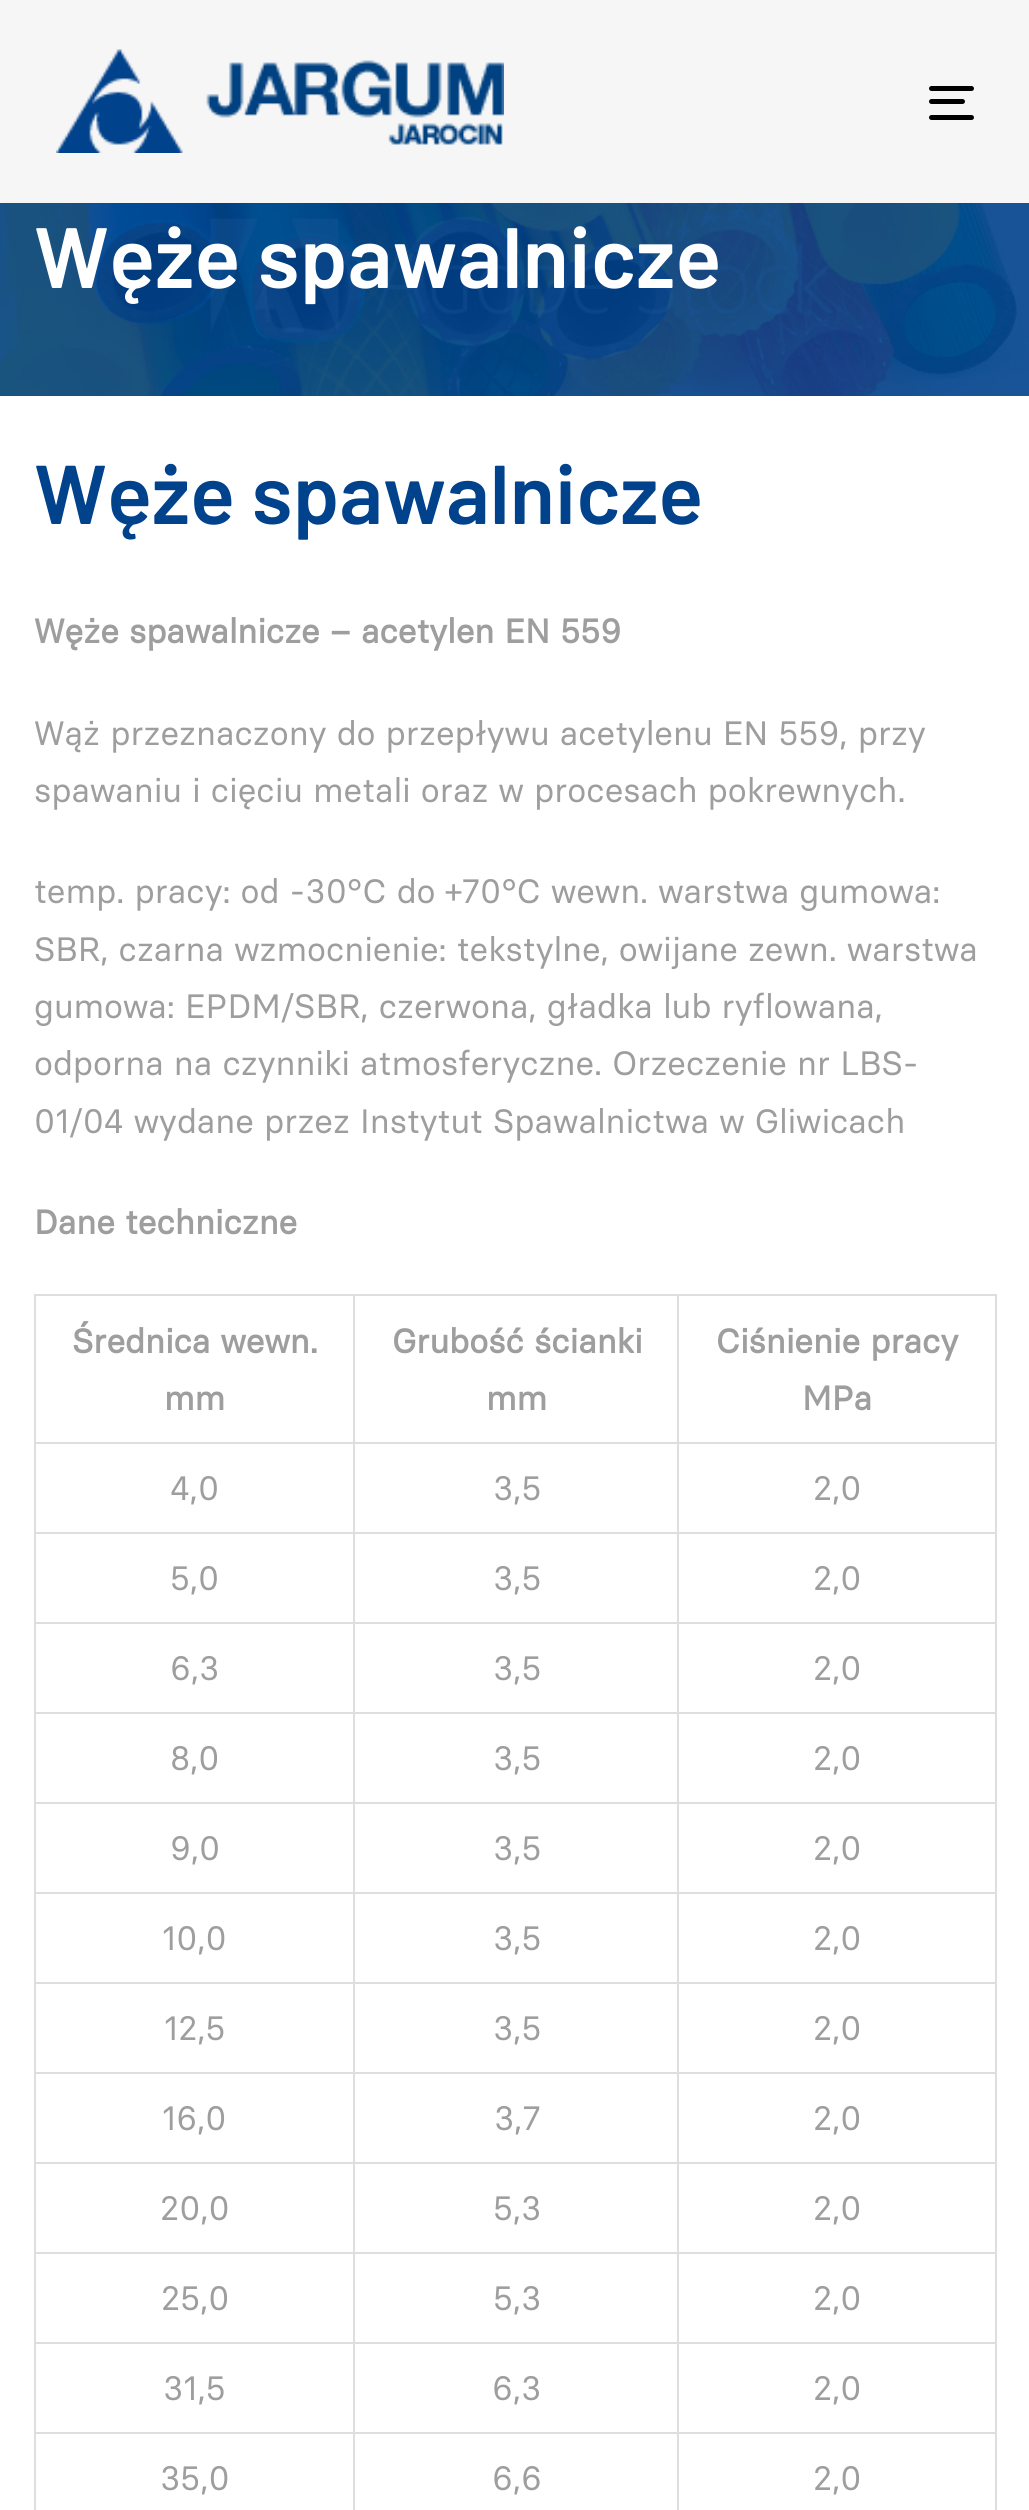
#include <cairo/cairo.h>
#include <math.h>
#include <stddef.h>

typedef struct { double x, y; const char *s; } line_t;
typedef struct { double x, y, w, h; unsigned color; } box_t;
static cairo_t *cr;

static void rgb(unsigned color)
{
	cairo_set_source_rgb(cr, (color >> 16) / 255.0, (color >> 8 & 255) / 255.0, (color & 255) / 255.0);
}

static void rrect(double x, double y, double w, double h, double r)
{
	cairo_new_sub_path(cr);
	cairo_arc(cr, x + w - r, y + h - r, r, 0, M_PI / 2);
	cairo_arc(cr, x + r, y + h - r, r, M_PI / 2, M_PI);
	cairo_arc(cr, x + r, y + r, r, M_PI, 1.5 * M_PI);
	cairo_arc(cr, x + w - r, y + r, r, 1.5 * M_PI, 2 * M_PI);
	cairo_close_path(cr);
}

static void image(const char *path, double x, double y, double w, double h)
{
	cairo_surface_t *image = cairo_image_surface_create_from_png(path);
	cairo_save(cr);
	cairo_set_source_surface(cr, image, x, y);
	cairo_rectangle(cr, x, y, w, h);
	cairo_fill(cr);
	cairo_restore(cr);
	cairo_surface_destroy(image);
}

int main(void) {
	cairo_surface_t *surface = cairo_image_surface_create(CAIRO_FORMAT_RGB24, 1029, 2510);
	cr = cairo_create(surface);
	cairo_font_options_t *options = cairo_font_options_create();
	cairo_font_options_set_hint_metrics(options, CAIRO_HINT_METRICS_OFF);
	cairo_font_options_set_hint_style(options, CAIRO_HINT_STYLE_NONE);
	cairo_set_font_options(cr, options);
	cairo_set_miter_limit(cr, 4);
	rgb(0xffffff);
	cairo_paint(cr);
	image("img/1.png", 0, 203, 1029, 193);
	rgb(0xf6f6f6);
	cairo_rectangle(cr, 0, 0, 1029, 203);
	cairo_fill(cr);
	image("img/2.png", 56, 49, 448, 104);
	rgb(0x000000);
	rrect(929, 86, 45, 5, 2.5);
	cairo_fill(cr);
	rrect(929, 99, 36, 5, 2.5);
	cairo_fill(cr);
	rrect(929, 115, 45, 5, 2.5);
	cairo_fill(cr);
	{
		static const box_t items[] = {
			{34, 1294, 963, 2, 0xdedede},
			{995, 1294, 2, 1216, 0xdedede},
			{34, 1294, 2, 1216, 0xdedede},
			{34, 1442, 963, 2, 0xdedede},
			{34, 1532, 963, 2, 0xdedede},
			{34, 1622, 963, 2, 0xdedede},
			{34, 1712, 963, 2, 0xdedede},
			{34, 1802, 963, 2, 0xdedede},
			{34, 1892, 963, 2, 0xdedede},
			{34, 1982, 963, 2, 0xdedede},
			{34, 2072, 963, 2, 0xdedede},
			{34, 2162, 963, 2, 0xdedede},
			{34, 2252, 963, 2, 0xdedede},
			{34, 2342, 963, 2, 0xdedede},
			{34, 2432, 963, 2, 0xdedede},
			{353, 1294, 2, 1216, 0xdedede},
			{677, 1294, 2, 1216, 0xdedede},
		};
		for (size_t i = 0; i < sizeof items / sizeof *items; i++) {
			rgb(items[i].color);
			cairo_rectangle(cr, items[i].x, items[i].y, items[i].w, items[i].h);
			cairo_fill(cr);
		}
	}
	cairo_select_font_face(cr, "Barlow SemiBold", CAIRO_FONT_SLANT_NORMAL, CAIRO_FONT_WEIGHT_NORMAL);
	cairo_set_font_size(cr, 85.5);
	rgb(0xffffff);
	cairo_move_to(cr, 34, 288);
	cairo_show_text(cr, "Węże spawalnicze");
	cairo_set_font_size(cr, 83.25);
	rgb(0x00428c);
	cairo_move_to(cr, 34, 524);
	cairo_show_text(cr, "Węże spawalnicze");
	cairo_select_font_face(cr, "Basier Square", CAIRO_FONT_SLANT_NORMAL, CAIRO_FONT_WEIGHT_BOLD);
	cairo_set_font_size(cr, 33.75);
	rgb(0x9e9e9e);
	cairo_move_to(cr, 34, 643);
	cairo_show_text(cr, "Węże spawalnicze – acetylen EN 559");
	cairo_select_font_face(cr, "Basier Square", CAIRO_FONT_SLANT_NORMAL, CAIRO_FONT_WEIGHT_NORMAL);
	{
		static const line_t items[] = {
			{34, 745, "Wąż przeznaczony do przepływu acetylenu EN 559, przy"},
			{34, 802, "spawaniu i cięciu metali oraz w procesach pokrewnych."},
			{34, 903, "temp. pracy: od -30°C do +70°C wewn. warstwa gumowa:"},
			{34, 961, "SBR, czarna wzmocnienie: tekstylne, owijane zewn. warstwa"},
			{34, 1018, "gumowa: EPDM/SBR, czerwona, gładka lub ryflowana,"},
			{34, 1075, "odporna na czynniki atmosferyczne. Orzeczenie nr LBS-"},
			{34, 1133, "01/04 wydane przez Instytut Spawalnictwa w Gliwicach"},
		};
		for (size_t i = 0; i < sizeof items / sizeof *items; i++) {
			cairo_move_to(cr, items[i].x, items[i].y);
			cairo_show_text(cr, items[i].s);
		}
	}
	cairo_select_font_face(cr, "Basier Square", CAIRO_FONT_SLANT_NORMAL, CAIRO_FONT_WEIGHT_BOLD);
	{
		static const line_t items[] = {
			{34, 1234, "Dane techniczne"},
			{72, 1353, "Średnica wewn."},
			{164, 1410, "mm"},
			{392, 1353, "Grubość ścianki"},
			{486, 1410, "mm"},
			{716, 1353, "Ciśnienie pracy"},
			{802, 1410, "MPa"},
		};
		for (size_t i = 0; i < sizeof items / sizeof *items; i++) {
			cairo_move_to(cr, items[i].x, items[i].y);
			cairo_show_text(cr, items[i].s);
		}
	}
	cairo_select_font_face(cr, "Basier Square", CAIRO_FONT_SLANT_NORMAL, CAIRO_FONT_WEIGHT_NORMAL);
	{
		static const line_t items[] = {
			{170, 1500, "4,0"},
			{493, 1500, "3,5"},
			{813, 1500, "2,0"},
			{170, 1590, "5,0"},
			{493, 1590, "3,5"},
			{813, 1590, "2,0"},
			{170, 1680, "6,3"},
			{493, 1680, "3,5"},
			{813, 1680, "2,0"},
			{170, 1770, "8,0"},
			{493, 1770, "3,5"},
			{813, 1770, "2,0"},
			{170, 1860, "9,0"},
			{493, 1860, "3,5"},
			{813, 1860, "2,0"},
			{162, 1950, "10,0"},
			{493, 1950, "3,5"},
			{813, 1950, "2,0"},
			{164, 2040, "12,5"},
			{493, 2040, "3,5"},
			{813, 2040, "2,0"},
			{162, 2130, "16,0"},
			{494, 2130, "3,7"},
			{813, 2130, "2,0"},
			{160, 2220, "20,0"},
			{493, 2220, "5,3"},
			{813, 2220, "2,0"},
			{161, 2310, "25,0"},
			{493, 2310, "5,3"},
			{813, 2310, "2,0"},
			{163, 2400, "31,5"},
			{492, 2400, "6,3"},
			{813, 2400, "2,0"},
			{160, 2490, "35,0"},
			{492, 2490, "6,6"},
			{813, 2490, "2,0"},
		};
		for (size_t i = 0; i < sizeof items / sizeof *items; i++) {
			cairo_move_to(cr, items[i].x, items[i].y);
			cairo_show_text(cr, items[i].s);
		}
	}
	cairo_surface_write_to_png(surface, "page.png");
	cairo_font_options_destroy(options);
	cairo_destroy(cr);
	cairo_surface_destroy(surface);
	return 0;
}
